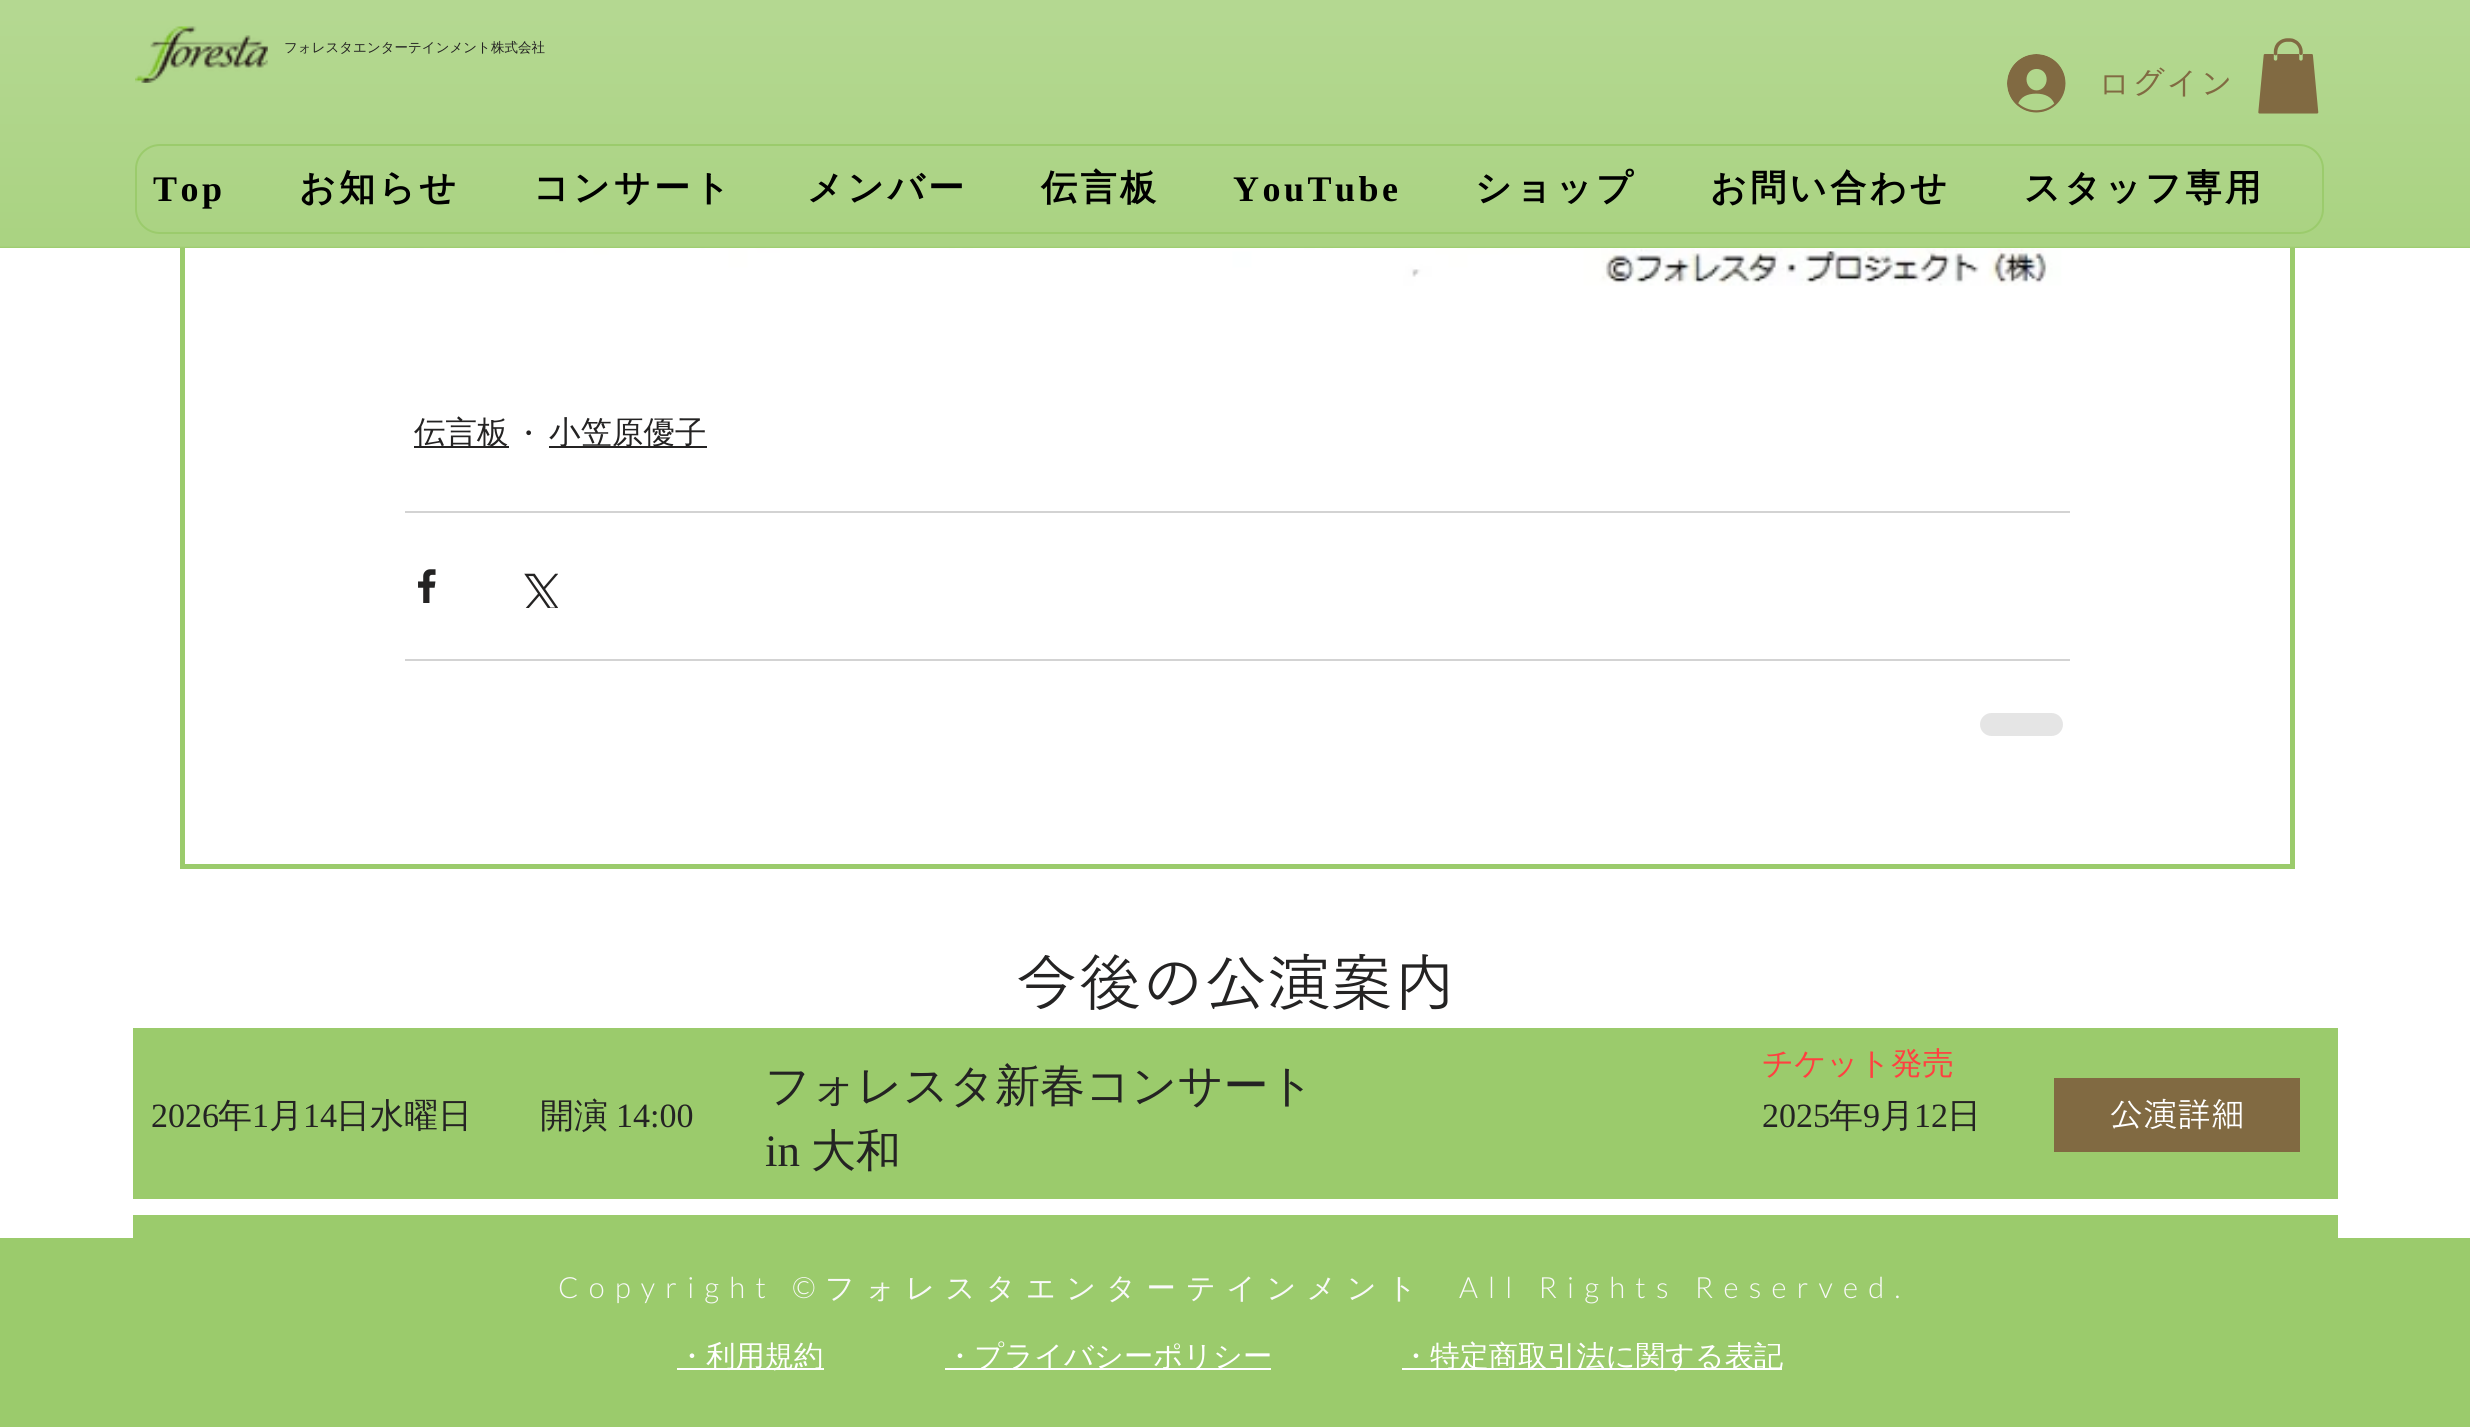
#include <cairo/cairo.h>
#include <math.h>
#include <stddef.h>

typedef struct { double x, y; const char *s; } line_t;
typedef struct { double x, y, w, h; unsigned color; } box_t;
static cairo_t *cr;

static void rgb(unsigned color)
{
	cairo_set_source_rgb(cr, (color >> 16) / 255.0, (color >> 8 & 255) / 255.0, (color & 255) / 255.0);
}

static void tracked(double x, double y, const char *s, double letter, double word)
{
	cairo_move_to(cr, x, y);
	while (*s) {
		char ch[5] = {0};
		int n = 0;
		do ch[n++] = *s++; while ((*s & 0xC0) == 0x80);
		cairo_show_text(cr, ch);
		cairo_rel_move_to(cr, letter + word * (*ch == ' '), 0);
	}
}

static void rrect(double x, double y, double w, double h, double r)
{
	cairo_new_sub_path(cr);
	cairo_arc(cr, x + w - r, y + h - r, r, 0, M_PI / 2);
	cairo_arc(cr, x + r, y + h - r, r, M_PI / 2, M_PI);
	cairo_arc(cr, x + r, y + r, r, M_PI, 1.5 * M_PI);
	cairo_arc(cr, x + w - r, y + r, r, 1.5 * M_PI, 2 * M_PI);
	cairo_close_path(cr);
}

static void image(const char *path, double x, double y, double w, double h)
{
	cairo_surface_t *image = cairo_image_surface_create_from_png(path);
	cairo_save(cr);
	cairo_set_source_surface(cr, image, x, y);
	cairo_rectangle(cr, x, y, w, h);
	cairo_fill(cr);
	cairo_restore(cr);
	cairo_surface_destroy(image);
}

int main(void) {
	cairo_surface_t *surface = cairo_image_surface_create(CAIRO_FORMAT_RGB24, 2470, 1427);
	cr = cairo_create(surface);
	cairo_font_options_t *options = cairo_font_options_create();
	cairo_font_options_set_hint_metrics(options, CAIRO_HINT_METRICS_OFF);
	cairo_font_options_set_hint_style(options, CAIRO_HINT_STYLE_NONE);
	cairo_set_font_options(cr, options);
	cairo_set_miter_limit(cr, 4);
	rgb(0xffffff);
	cairo_paint(cr);
	cairo_rectangle(cr, 182.5, -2.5, 2110, 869);
	rgb(0x9bcb6c);
	cairo_set_line_width(cr, 5);
	cairo_stroke(cr);
	cairo_rectangle(cr, 0, 0, 2470, 248);
	cairo_fill(cr);
	image("img/1.png", 0, 0, 2470, 248);
	image("img/2.png", 135, 26, 133, 57);
	image("img/3.png", 2258, 38, 61, 76);
	image("img/4.png", 2007, 54, 59, 59);
	rrect(136, 145, 2187, 88, 24);
	cairo_set_line_width(cr, 2);
	cairo_stroke(cr);
	image("img/5.png", 405, 248, 1665, 38);
	{
		static const box_t items[] = {
			{414, 446, 95, 2, 0x242323},
			{549, 446, 158, 2, 0x242323},
			{405, 511, 1665, 2, 0xd3d3d3},
		};
		for (size_t i = 0; i < sizeof items / sizeof *items; i++) {
			rgb(items[i].color);
			cairo_rectangle(cr, items[i].x, items[i].y, items[i].w, items[i].h);
			cairo_fill(cr);
		}
	}
	image("img/6.png", 418, 569, 18, 34);
	image("img/7.png", 524, 573, 34, 35);
	cairo_rectangle(cr, 405, 659, 1665, 2);
	cairo_fill(cr);
	rgb(0xe5e5e5);
	rrect(1980, 713, 83, 23, 11.5);
	cairo_fill(cr);
	{
		static const box_t items[] = {
			{133, 1028, 2205, 171, 0x9bcb6c},
			{2054, 1078, 246, 74, 0x816a42},
			{133, 1215, 2205, 23, 0x9bcb6c},
			{0, 1238, 2470, 189, 0x9bcb6c},
			{677, 1368, 147, 2, 0xffffff},
			{945, 1368, 326, 2, 0xffffff},
			{1402, 1368, 380, 2, 0xffffff},
		};
		for (size_t i = 0; i < sizeof items / sizeof *items; i++) {
			rgb(items[i].color);
			cairo_rectangle(cr, items[i].x, items[i].y, items[i].w, items[i].h);
			cairo_fill(cr);
		}
	}
	cairo_select_font_face(cr, "WenQuanYi Zen Hei Medium", CAIRO_FONT_SLANT_NORMAL, CAIRO_FONT_WEIGHT_NORMAL);
	cairo_set_font_size(cr, 13.5);
	rgb(0x242323);
	cairo_move_to(cr, 284, 52);
	cairo_show_text(cr, "フォレスタエンターテインメント株式会社");
	cairo_select_font_face(cr, "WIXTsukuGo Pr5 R", CAIRO_FONT_SLANT_NORMAL, CAIRO_FONT_WEIGHT_NORMAL);
	cairo_set_font_size(cr, 34);
	rgb(0x816a42);
	cairo_move_to(cr, 2097, 96);
	cairo_show_text(cr, "ログイン");
	cairo_select_font_face(cr, "Liberation Serif", CAIRO_FONT_SLANT_NORMAL, CAIRO_FONT_WEIGHT_BOLD);
	cairo_set_font_size(cr, 36);
	rgb(0x000000);
	tracked(153, 201, "Top", 3.5, 0);
	cairo_select_font_face(cr, "WenQuanYi Zen Hei", CAIRO_FONT_SLANT_NORMAL, CAIRO_FONT_WEIGHT_BOLD);
	{
		static const line_t items[] = {
			{299, 200, "お知らせ"},
			{533, 200, "コンサート"},
			{807, 200, "メンバー"},
			{1041, 200, "伝言板"},
		};
		for (size_t i = 0; i < sizeof items / sizeof *items; i++) {
			tracked(items[i].x, items[i].y, items[i].s, 3.5, 0);
		}
	}
	cairo_select_font_face(cr, "Liberation Serif", CAIRO_FONT_SLANT_NORMAL, CAIRO_FONT_WEIGHT_BOLD);
	tracked(1233, 201, "YouTube", 3.5, 0);
	cairo_select_font_face(cr, "WenQuanYi Zen Hei", CAIRO_FONT_SLANT_NORMAL, CAIRO_FONT_WEIGHT_BOLD);
	{
		static const line_t items[] = {
			{1475, 200, "ショップ"},
			{1710, 200, "お問い合わせ"},
			{2024, 200, "スタッフ専用"},
		};
		for (size_t i = 0; i < sizeof items / sizeof *items; i++) {
			tracked(items[i].x, items[i].y, items[i].s, 3.5, 0);
		}
	}
	cairo_select_font_face(cr, "WenQuanYi Zen Hei Medium", CAIRO_FONT_SLANT_NORMAL, CAIRO_FONT_WEIGHT_NORMAL);
	cairo_set_font_size(cr, 31.5);
	rgb(0x242323);
	cairo_move_to(cr, 414, 443);
	cairo_show_text(cr, "伝言板");
	cairo_select_font_face(cr, "Liberation Serif", CAIRO_FONT_SLANT_NORMAL, CAIRO_FONT_WEIGHT_NORMAL);
	cairo_set_font_size(cr, 40);
	cairo_move_to(cr, 522, 446);
	cairo_show_text(cr, "·");
	cairo_select_font_face(cr, "WenQuanYi Zen Hei Medium", CAIRO_FONT_SLANT_NORMAL, CAIRO_FONT_WEIGHT_NORMAL);
	cairo_set_font_size(cr, 31.5);
	cairo_move_to(cr, 549, 443);
	cairo_show_text(cr, "小笠原優子");
	cairo_select_font_face(cr, "WIXTsukuGo Pr5 R", CAIRO_FONT_SLANT_NORMAL, CAIRO_FONT_WEIGHT_NORMAL);
	cairo_set_font_size(cr, 63);
	cairo_move_to(cr, 1015, 1006);
	cairo_show_text(cr, "今後の公演案内");
	cairo_select_font_face(cr, "Liberation Serif", CAIRO_FONT_SLANT_NORMAL, CAIRO_FONT_WEIGHT_NORMAL);
	cairo_set_font_size(cr, 34);
	cairo_move_to(cr, 151, 1127);
	cairo_show_text(cr, "2026");
	cairo_select_font_face(cr, "WenQuanYi Zen Hei Medium", CAIRO_FONT_SLANT_NORMAL, CAIRO_FONT_WEIGHT_NORMAL);
	cairo_move_to(cr, 218, 1127);
	cairo_show_text(cr, "年");
	cairo_select_font_face(cr, "Liberation Serif", CAIRO_FONT_SLANT_NORMAL, CAIRO_FONT_WEIGHT_NORMAL);
	cairo_move_to(cr, 252, 1127);
	cairo_show_text(cr, "1");
	cairo_select_font_face(cr, "WenQuanYi Zen Hei Medium", CAIRO_FONT_SLANT_NORMAL, CAIRO_FONT_WEIGHT_NORMAL);
	cairo_move_to(cr, 269, 1127);
	cairo_show_text(cr, "月");
	cairo_select_font_face(cr, "Liberation Serif", CAIRO_FONT_SLANT_NORMAL, CAIRO_FONT_WEIGHT_NORMAL);
	cairo_move_to(cr, 303, 1127);
	cairo_show_text(cr, "14");
	cairo_select_font_face(cr, "WenQuanYi Zen Hei Medium", CAIRO_FONT_SLANT_NORMAL, CAIRO_FONT_WEIGHT_NORMAL);
	cairo_move_to(cr, 336, 1127);
	cairo_show_text(cr, "日水曜日");
	cairo_move_to(cr, 540, 1127);
	cairo_show_text(cr, "開演");
	cairo_select_font_face(cr, "Liberation Serif", CAIRO_FONT_SLANT_NORMAL, CAIRO_FONT_WEIGHT_NORMAL);
	cairo_move_to(cr, 616, 1127);
	cairo_show_text(cr, "14:00");
	cairo_select_font_face(cr, "WenQuanYi Zen Hei Medium", CAIRO_FONT_SLANT_NORMAL, CAIRO_FONT_WEIGHT_NORMAL);
	cairo_set_font_size(cr, 45);
	cairo_move_to(cr, 765, 1101);
	cairo_show_text(cr, "フォレスタ新春コンサート");
	cairo_select_font_face(cr, "Liberation Serif", CAIRO_FONT_SLANT_NORMAL, CAIRO_FONT_WEIGHT_NORMAL);
	cairo_move_to(cr, 765, 1166);
	cairo_show_text(cr, "in");
	cairo_select_font_face(cr, "WenQuanYi Zen Hei Medium", CAIRO_FONT_SLANT_NORMAL, CAIRO_FONT_WEIGHT_NORMAL);
	cairo_move_to(cr, 811, 1166);
	cairo_show_text(cr, "大和");
	cairo_set_font_size(cr, 31.5);
	rgb(0xff4040);
	cairo_move_to(cr, 1762, 1074);
	cairo_show_text(cr, "チケット発売");
	cairo_select_font_face(cr, "Liberation Serif", CAIRO_FONT_SLANT_NORMAL, CAIRO_FONT_WEIGHT_NORMAL);
	cairo_set_font_size(cr, 34);
	rgb(0x242323);
	cairo_move_to(cr, 1762, 1127);
	cairo_show_text(cr, "2025");
	cairo_select_font_face(cr, "WenQuanYi Zen Hei Medium", CAIRO_FONT_SLANT_NORMAL, CAIRO_FONT_WEIGHT_NORMAL);
	cairo_move_to(cr, 1829, 1127);
	cairo_show_text(cr, "年");
	cairo_select_font_face(cr, "Liberation Serif", CAIRO_FONT_SLANT_NORMAL, CAIRO_FONT_WEIGHT_NORMAL);
	cairo_move_to(cr, 1863, 1127);
	cairo_show_text(cr, "9");
	cairo_select_font_face(cr, "WenQuanYi Zen Hei Medium", CAIRO_FONT_SLANT_NORMAL, CAIRO_FONT_WEIGHT_NORMAL);
	cairo_move_to(cr, 1880, 1127);
	cairo_show_text(cr, "月");
	cairo_select_font_face(cr, "Liberation Serif", CAIRO_FONT_SLANT_NORMAL, CAIRO_FONT_WEIGHT_NORMAL);
	cairo_move_to(cr, 1914, 1127);
	cairo_show_text(cr, "12");
	cairo_select_font_face(cr, "WenQuanYi Zen Hei Medium", CAIRO_FONT_SLANT_NORMAL, CAIRO_FONT_WEIGHT_NORMAL);
	cairo_move_to(cr, 1947, 1127);
	cairo_show_text(cr, "日");
	cairo_select_font_face(cr, "WIXTsukuGo Pr5 R", CAIRO_FONT_SLANT_NORMAL, CAIRO_FONT_WEIGHT_NORMAL);
	rgb(0xffffff);
	cairo_move_to(cr, 2109, 1127);
	cairo_show_text(cr, "公演詳細");
	cairo_select_font_face(cr, "Lato Light", CAIRO_FONT_SLANT_NORMAL, CAIRO_FONT_WEIGHT_NORMAL);
	cairo_set_font_size(cr, 29.25);
	rgb(0xf9f9f9);
	tracked(558, 1298, "Copyright ©", 10.25, 0);
	cairo_select_font_face(cr, "WenQuanYi Zen Hei Medium", CAIRO_FONT_SLANT_NORMAL, CAIRO_FONT_WEIGHT_NORMAL);
	tracked(825, 1298, "フォレスタエンターテインメント", 10.25, 0);
	cairo_select_font_face(cr, "Lato Light", CAIRO_FONT_SLANT_NORMAL, CAIRO_FONT_WEIGHT_NORMAL);
	tracked(1459, 1298, "All Rights Reserved.", 10.25, 0);
	cairo_select_font_face(cr, "WenQuanYi Zen Hei Medium", CAIRO_FONT_SLANT_NORMAL, CAIRO_FONT_WEIGHT_NORMAL);
	rgb(0xffffff);
	{
		static const line_t items[] = {
			{677, 1366, "・利用規約"},
			{945, 1366, "・プライバシーポリシー"},
			{1401, 1366, "・特定商取引法に関する表記"},
		};
		for (size_t i = 0; i < sizeof items / sizeof *items; i++) {
			cairo_move_to(cr, items[i].x, items[i].y);
			cairo_show_text(cr, items[i].s);
		}
	}
	cairo_surface_write_to_png(surface, "page.png");
	cairo_font_options_destroy(options);
	cairo_destroy(cr);
	cairo_surface_destroy(surface);
	return 0;
}
